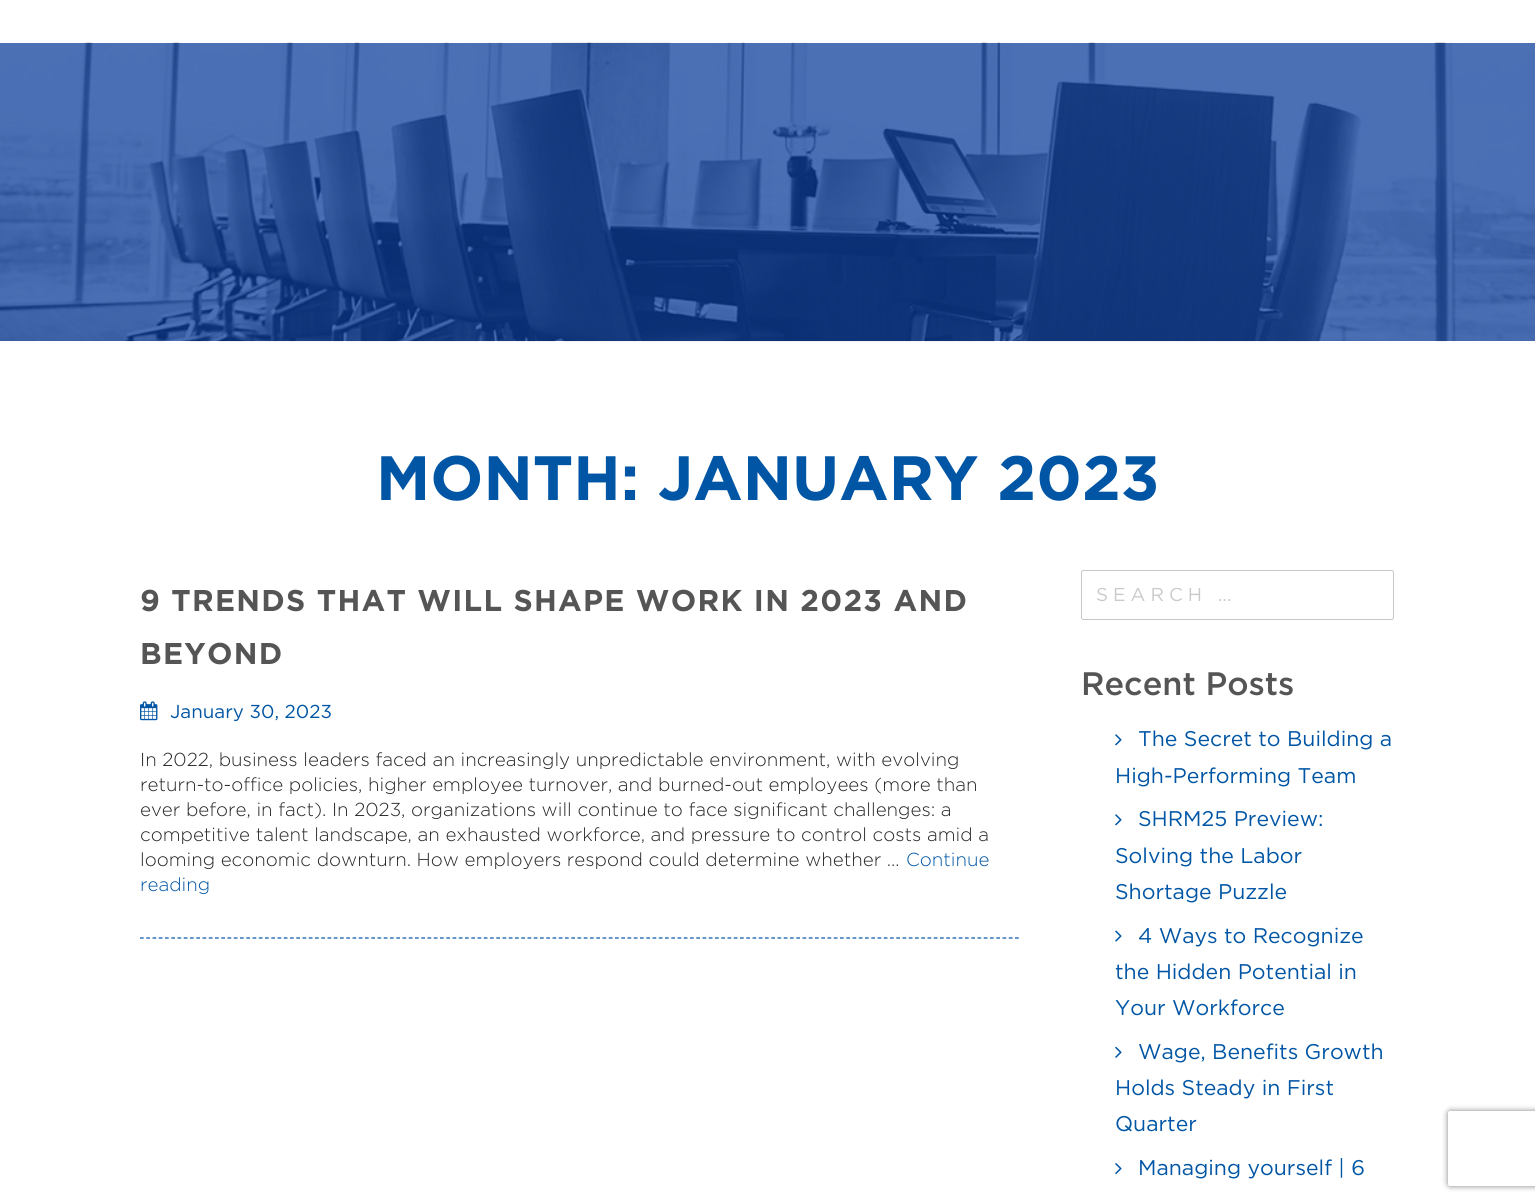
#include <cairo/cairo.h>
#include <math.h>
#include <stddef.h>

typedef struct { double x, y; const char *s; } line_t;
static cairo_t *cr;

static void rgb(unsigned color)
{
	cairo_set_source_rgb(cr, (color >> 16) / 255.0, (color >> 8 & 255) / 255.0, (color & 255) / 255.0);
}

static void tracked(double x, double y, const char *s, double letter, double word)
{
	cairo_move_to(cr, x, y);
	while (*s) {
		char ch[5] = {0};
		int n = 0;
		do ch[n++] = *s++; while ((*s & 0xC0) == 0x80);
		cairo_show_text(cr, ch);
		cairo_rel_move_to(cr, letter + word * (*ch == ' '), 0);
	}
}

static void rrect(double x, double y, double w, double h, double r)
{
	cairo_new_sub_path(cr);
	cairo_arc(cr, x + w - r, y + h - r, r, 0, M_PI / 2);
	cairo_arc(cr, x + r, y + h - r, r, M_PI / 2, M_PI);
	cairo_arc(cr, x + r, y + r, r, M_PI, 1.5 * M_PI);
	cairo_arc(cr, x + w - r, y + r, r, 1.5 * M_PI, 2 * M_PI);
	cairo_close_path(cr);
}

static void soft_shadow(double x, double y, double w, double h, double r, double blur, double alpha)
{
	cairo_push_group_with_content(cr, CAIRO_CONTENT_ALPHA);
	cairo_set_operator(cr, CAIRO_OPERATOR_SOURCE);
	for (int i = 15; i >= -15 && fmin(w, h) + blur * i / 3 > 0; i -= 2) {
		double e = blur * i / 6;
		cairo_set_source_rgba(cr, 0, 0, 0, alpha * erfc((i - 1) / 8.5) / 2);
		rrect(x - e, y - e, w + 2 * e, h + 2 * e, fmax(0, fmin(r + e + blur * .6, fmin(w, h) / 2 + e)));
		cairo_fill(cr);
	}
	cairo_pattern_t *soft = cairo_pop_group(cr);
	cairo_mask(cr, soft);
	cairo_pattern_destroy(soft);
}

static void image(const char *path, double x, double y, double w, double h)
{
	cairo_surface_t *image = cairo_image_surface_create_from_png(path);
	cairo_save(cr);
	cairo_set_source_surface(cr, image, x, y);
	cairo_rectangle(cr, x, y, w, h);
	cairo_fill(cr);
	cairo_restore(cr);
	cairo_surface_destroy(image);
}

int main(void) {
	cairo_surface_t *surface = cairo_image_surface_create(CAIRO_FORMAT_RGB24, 1535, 1203);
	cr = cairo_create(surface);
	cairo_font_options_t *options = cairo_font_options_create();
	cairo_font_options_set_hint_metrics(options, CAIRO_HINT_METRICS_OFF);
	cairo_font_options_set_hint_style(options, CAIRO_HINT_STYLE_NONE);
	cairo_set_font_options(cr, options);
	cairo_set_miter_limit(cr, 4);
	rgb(0xffffff);
	cairo_paint(cr);
	image("img/1.png", 0, 42, 1535, 300);
	cairo_new_path(cr);
	cairo_move_to(cr, 140, 938);
	cairo_line_to(cr, 1019, 938);
	rgb(0x0055a5);
	cairo_set_line_width(cr, 1.2);
	cairo_set_dash(cr, (double[]){3.75, 2.5}, 2, 0);
	cairo_stroke(cr);
	image("img/2.png", 140, 701, 18, 20);
	rrect(1081.5, 570.5, 312, 49, 2);
	rgb(0xc6c6c6);
	cairo_set_line_width(cr, 1);
	cairo_set_dash(cr, NULL, 0, 0);
	cairo_stroke(cr);
	image("img/3.png", 1115, 734, 7, 12);
	image("img/3.png", 1115, 814, 7, 12);
	image("img/4.png", 1115, 930, 7, 12);
	image("img/5.png", 1115, 1046, 7, 12);
	image("img/6.png", 1115, 1163, 7, 12);
	cairo_save(cr);
	cairo_set_fill_rule(cr, CAIRO_FILL_RULE_EVEN_ODD);
	cairo_new_path(cr);
	cairo_move_to(cr, 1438, 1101);
	cairo_line_to(cr, 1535, 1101);
	cairo_line_to(cr, 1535, 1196);
	cairo_line_to(cr, 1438, 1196);
	cairo_close_path(cr);
	cairo_move_to(cr, 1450.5, 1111);
	cairo_line_to(cr, 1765.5, 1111);
	cairo_curve_to(cr, 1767, 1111, 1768, 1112, 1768, 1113.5);
	cairo_line_to(cr, 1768, 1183.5);
	cairo_curve_to(cr, 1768, 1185, 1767, 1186, 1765.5, 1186);
	cairo_line_to(cr, 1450.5, 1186);
	cairo_curve_to(cr, 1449, 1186, 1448, 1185, 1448, 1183.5);
	cairo_line_to(cr, 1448, 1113.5);
	cairo_curve_to(cr, 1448, 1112, 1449, 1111, 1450.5, 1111);
	cairo_close_path(cr);
	cairo_clip(cr);
	rgb(0x808080);
	soft_shadow(1448, 1111, 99, 75, 2.5, 3, 1);
	cairo_restore(cr);
	cairo_select_font_face(cr, "Gotham", CAIRO_FONT_SLANT_NORMAL, CAIRO_FONT_WEIGHT_BOLD);
	cairo_set_font_size(cr, 62.5);
	rgb(0x0055a5);
	cairo_move_to(cr, 376, 500);
	cairo_show_text(cr, "MONTH: JANUARY 2023");
	cairo_set_font_size(cr, 30);
	rgb(0x555555);
	tracked(140, 611, "9 TRENDS THAT WILL SHAPE WORK IN 2023 AND", 1.25, 0);
	tracked(140, 664, "BEYOND", 1.25, 0);
	cairo_select_font_face(cr, "Gotham", CAIRO_FONT_SLANT_NORMAL, CAIRO_FONT_WEIGHT_NORMAL);
	cairo_set_font_size(cr, 18.75);
	rgb(0x0055a5);
	cairo_move_to(cr, 170, 718);
	cairo_show_text(cr, "January 30, 2023");
	cairo_select_font_face(cr, "Gotham Light", CAIRO_FONT_SLANT_NORMAL, CAIRO_FONT_WEIGHT_NORMAL);
	rgb(0x262626);
	{
		static const line_t items[] = {
			{140, 766, "In 2022, business leaders faced an increasingly unpredictable environment, with evolving"},
			{140, 791, "return-to-office policies, higher employee turnover, and burned-out employees (more than"},
			{140, 816, "ever before, in fact). In 2023, organizations will continue to face significant challenges: a"},
			{140, 841, "competitive talent landscape, an exhausted workforce, and pressure to control costs amid a"},
			{140, 866, "looming economic downturn. How employers respond could determine whether …"},
		};
		for (size_t i = 0; i < sizeof items / sizeof *items; i++) {
			cairo_move_to(cr, items[i].x, items[i].y);
			cairo_show_text(cr, items[i].s);
		}
	}
	rgb(0x0055a5);
	cairo_move_to(cr, 906, 866);
	cairo_show_text(cr, "Continue");
	cairo_move_to(cr, 140, 891);
	cairo_show_text(cr, "reading");
	cairo_save(cr);
	cairo_rectangle(cr, 1096, 588, 278, 17);
	cairo_clip(cr);
	cairo_select_font_face(cr, "Gotham", CAIRO_FONT_SLANT_NORMAL, CAIRO_FONT_WEIGHT_NORMAL);
	rgb(0xcacaca);
	tracked(1096, 601, "SEARCH …", 5, 0);
	cairo_restore(cr);
	cairo_select_font_face(cr, "Gotham Medium", CAIRO_FONT_SLANT_NORMAL, CAIRO_FONT_WEIGHT_NORMAL);
	cairo_set_font_size(cr, 32.5);
	rgb(0x555555);
	cairo_move_to(cr, 1081, 695);
	cairo_show_text(cr, "Recent Posts");
	cairo_select_font_face(cr, "Gotham", CAIRO_FONT_SLANT_NORMAL, CAIRO_FONT_WEIGHT_NORMAL);
	cairo_set_font_size(cr, 21.25);
	rgb(0x0055a5);
	{
		static const line_t items[] = {
			{1138, 746, "The Secret to Building a"},
			{1115, 783, "High-Performing Team"},
			{1138, 826, "SHRM25 Preview:"},
			{1115, 863, "Solving the Labor"},
			{1115, 899, "Shortage Puzzle"},
			{1138, 943, "4 Ways to Recognize"},
			{1115, 979, "the Hidden Potential in"},
			{1115, 1015, "Your Workforce"},
			{1138, 1059, "Wage, Benefits Growth"},
			{1115, 1095, "Holds Steady in First"},
			{1115, 1131, "Quarter"},
			{1138, 1175, "Managing yourself | 6"},
		};
		for (size_t i = 0; i < sizeof items / sizeof *items; i++) {
			cairo_move_to(cr, items[i].x, items[i].y);
			cairo_show_text(cr, items[i].s);
		}
	}
	cairo_surface_write_to_png(surface, "page.png");
	cairo_font_options_destroy(options);
	cairo_destroy(cr);
	cairo_surface_destroy(surface);
	return 0;
}
